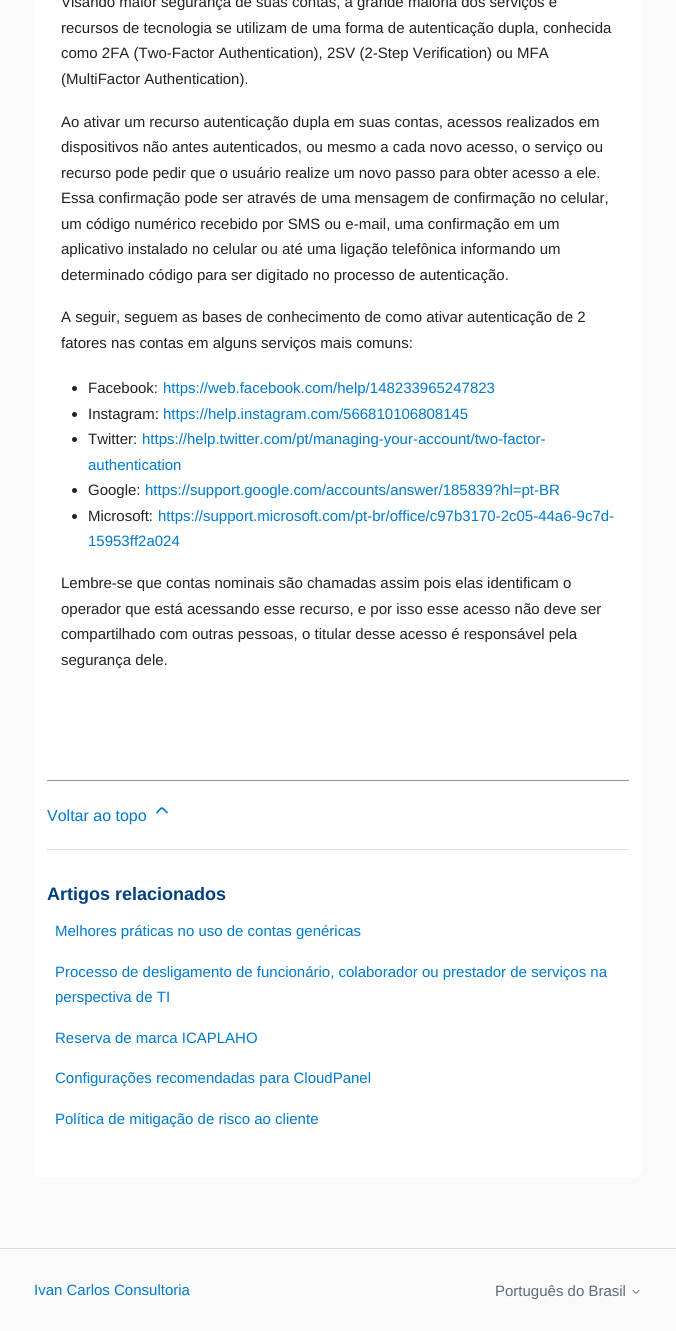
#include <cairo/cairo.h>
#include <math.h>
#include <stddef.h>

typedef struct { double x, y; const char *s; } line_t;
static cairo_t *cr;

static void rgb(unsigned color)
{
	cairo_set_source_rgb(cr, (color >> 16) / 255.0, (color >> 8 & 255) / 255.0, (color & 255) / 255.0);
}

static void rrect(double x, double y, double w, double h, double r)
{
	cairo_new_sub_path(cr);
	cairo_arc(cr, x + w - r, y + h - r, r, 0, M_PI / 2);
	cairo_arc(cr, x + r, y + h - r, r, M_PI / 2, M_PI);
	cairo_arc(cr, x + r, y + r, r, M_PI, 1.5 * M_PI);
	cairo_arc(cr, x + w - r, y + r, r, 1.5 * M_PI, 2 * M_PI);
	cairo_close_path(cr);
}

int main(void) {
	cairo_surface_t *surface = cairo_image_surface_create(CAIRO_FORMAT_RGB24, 676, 1331);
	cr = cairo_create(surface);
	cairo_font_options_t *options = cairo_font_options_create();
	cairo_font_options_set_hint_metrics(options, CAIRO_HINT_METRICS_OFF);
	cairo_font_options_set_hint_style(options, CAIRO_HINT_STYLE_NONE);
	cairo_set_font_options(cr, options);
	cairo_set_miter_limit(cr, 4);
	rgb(0xfafafa);
	cairo_paint(cr);
	rgb(0xffffff);
	rrect(34, -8, 608, 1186, 8);
	cairo_fill(cr);
	rgb(0x222222);
	cairo_arc(cr, 74.5, 388.5, 2.5, 0, 2 * M_PI);
	cairo_fill(cr);
	cairo_arc(cr, 74.5, 414.5, 2.5, 0, 2 * M_PI);
	cairo_fill(cr);
	cairo_arc(cr, 74.5, 439.5, 2.5, 0, 2 * M_PI);
	cairo_fill(cr);
	cairo_arc(cr, 74.5, 490.5, 2.5, 0, 2 * M_PI);
	cairo_fill(cr);
	cairo_arc(cr, 74.5, 516.5, 2.5, 0, 2 * M_PI);
	cairo_fill(cr);
	rgb(0x87929d);
	cairo_rectangle(cr, 47, 780, 582, 1);
	cairo_fill(cr);
	cairo_new_path(cr);
	cairo_move_to(cr, 167, 812.5);
	cairo_curve_to(cr, 160.5, 806.5, 163, 806.5, 157, 812.5);
	rgb(0x007acc);
	cairo_set_line_width(cr, 1.7);
	cairo_set_line_cap(cr, CAIRO_LINE_CAP_ROUND);
	cairo_stroke(cr);
	rgb(0xdddddd);
	cairo_rectangle(cr, 47, 849, 582, 1);
	cairo_fill(cr);
	cairo_rectangle(cr, 0, 1248, 676, 1);
	cairo_fill(cr);
	cairo_new_path(cr);
	cairo_move_to(cr, 633, 1290.5);
	cairo_curve_to(cr, 636.5, 1294, 635.5, 1294, 639, 1290.5);
	rgb(0x5a6d7c);
	cairo_set_line_width(cr, 1);
	cairo_stroke(cr);
	cairo_select_font_face(cr, "Liberation Sans", CAIRO_FONT_SLANT_NORMAL, CAIRO_FONT_WEIGHT_NORMAL);
	cairo_set_font_size(cr, 15);
	rgb(0x222222);
	{
		static const line_t items[] = {
			{61, 7, "Visando maior segurança de suas contas, a grande maioria dos serviços e"},
			{61, 33, "recursos de tecnologia se utilizam de uma forma de autenticação dupla, conhecida"},
			{61, 58, "como 2FA (Two-Factor Authentication), 2SV (2-Step Verification) ou MFA"},
			{61, 84, "(MultiFactor Authentication)."},
			{61, 127, "Ao ativar um recurso autenticação dupla em suas contas, acessos realizados em"},
			{61, 152, "dispositivos não antes autenticados, ou mesmo a cada novo acesso, o serviço ou"},
			{61, 178, "recurso pode pedir que o usuário realize um novo passo para obter acesso a ele."},
			{61, 203, "Essa confirmação pode ser através de uma mensagem de confirmação no celular,"},
			{61, 229, "um código numérico recebido por SMS ou e-mail, uma confirmação em um"},
			{61, 254, "aplicativo instalado no celular ou até uma ligação telefônica informando um"},
			{61, 280, "determinado código para ser digitado no processo de autenticação."},
			{61, 322, "A seguir, seguem as bases de conhecimento de como ativar autenticação de 2"},
			{61, 348, "fatores nas contas em alguns serviços mais comuns:"},
			{88, 393, "Facebook:"},
		};
		for (size_t i = 0; i < sizeof items / sizeof *items; i++) {
			cairo_move_to(cr, items[i].x, items[i].y);
			cairo_show_text(cr, items[i].s);
		}
	}
	rgb(0x007acc);
	cairo_move_to(cr, 163, 393);
	cairo_show_text(cr, "https://web.facebook.com/help/148233965247823");
	rgb(0x222222);
	cairo_move_to(cr, 88, 419);
	cairo_show_text(cr, "Instagram:");
	rgb(0x007acc);
	cairo_move_to(cr, 163, 419);
	cairo_show_text(cr, "https://help.instagram.com/566810106808145");
	rgb(0x222222);
	cairo_move_to(cr, 88, 444);
	cairo_show_text(cr, "Twitter:");
	rgb(0x007acc);
	cairo_move_to(cr, 142, 444);
	cairo_show_text(cr, "https://help.twitter.com/pt/managing-your-account/two-factor-");
	cairo_move_to(cr, 88, 470);
	cairo_show_text(cr, "authentication");
	rgb(0x222222);
	cairo_move_to(cr, 88, 495);
	cairo_show_text(cr, "Google:");
	rgb(0x007acc);
	cairo_move_to(cr, 145, 495);
	cairo_show_text(cr, "https://support.google.com/accounts/answer/185839?hl=pt-BR");
	rgb(0x222222);
	cairo_move_to(cr, 88, 521);
	cairo_show_text(cr, "Microsoft:");
	rgb(0x007acc);
	cairo_move_to(cr, 158, 521);
	cairo_show_text(cr, "https://support.microsoft.com/pt-br/office/c97b3170-2c05-44a6-9c7d-");
	cairo_move_to(cr, 88, 546);
	cairo_show_text(cr, "15953ff2a024");
	rgb(0x222222);
	{
		static const line_t items[] = {
			{61, 588, "Lembre-se que contas nominais são chamadas assim pois elas identificam o"},
			{61, 614, "operador que está acessando esse recurso, e por isso esse acesso não deve ser"},
			{61, 639, "compartilhado com outras pessoas, o titular desse acesso é responsável pela"},
			{61, 665, "segurança dele."},
		};
		for (size_t i = 0; i < sizeof items / sizeof *items; i++) {
			cairo_move_to(cr, items[i].x, items[i].y);
			cairo_show_text(cr, items[i].s);
		}
	}
	cairo_set_font_size(cr, 16);
	rgb(0x007acc);
	cairo_move_to(cr, 47, 821);
	cairo_show_text(cr, "Voltar ao topo");
	cairo_select_font_face(cr, "Liberation Sans", CAIRO_FONT_SLANT_NORMAL, CAIRO_FONT_WEIGHT_BOLD);
	cairo_set_font_size(cr, 18);
	rgb(0x004080);
	cairo_move_to(cr, 47, 900);
	cairo_show_text(cr, "Artigos relacionados");
	cairo_select_font_face(cr, "Liberation Sans", CAIRO_FONT_SLANT_NORMAL, CAIRO_FONT_WEIGHT_NORMAL);
	cairo_set_font_size(cr, 15);
	rgb(0x007acc);
	{
		static const line_t items[] = {
			{55, 936, "Melhores práticas no uso de contas genéricas"},
			{55, 977, "Processo de desligamento de funcionário, colaborador ou prestador de serviços na"},
			{55, 1002, "perspectiva de TI"},
			{55, 1043, "Reserva de marca ICAPLAHO"},
			{55, 1083, "Configurações recomendadas para CloudPanel"},
			{55, 1124, "Política de mitigação de risco ao cliente"},
			{34, 1295, "Ivan Carlos Consultoria"},
		};
		for (size_t i = 0; i < sizeof items / sizeof *items; i++) {
			cairo_move_to(cr, items[i].x, items[i].y);
			cairo_show_text(cr, items[i].s);
		}
	}
	rgb(0x5a6d7c);
	cairo_move_to(cr, 495, 1296);
	cairo_show_text(cr, "Português do Brasil");
	cairo_surface_write_to_png(surface, "page.png");
	cairo_font_options_destroy(options);
	cairo_destroy(cr);
	cairo_surface_destroy(surface);
	return 0;
}
